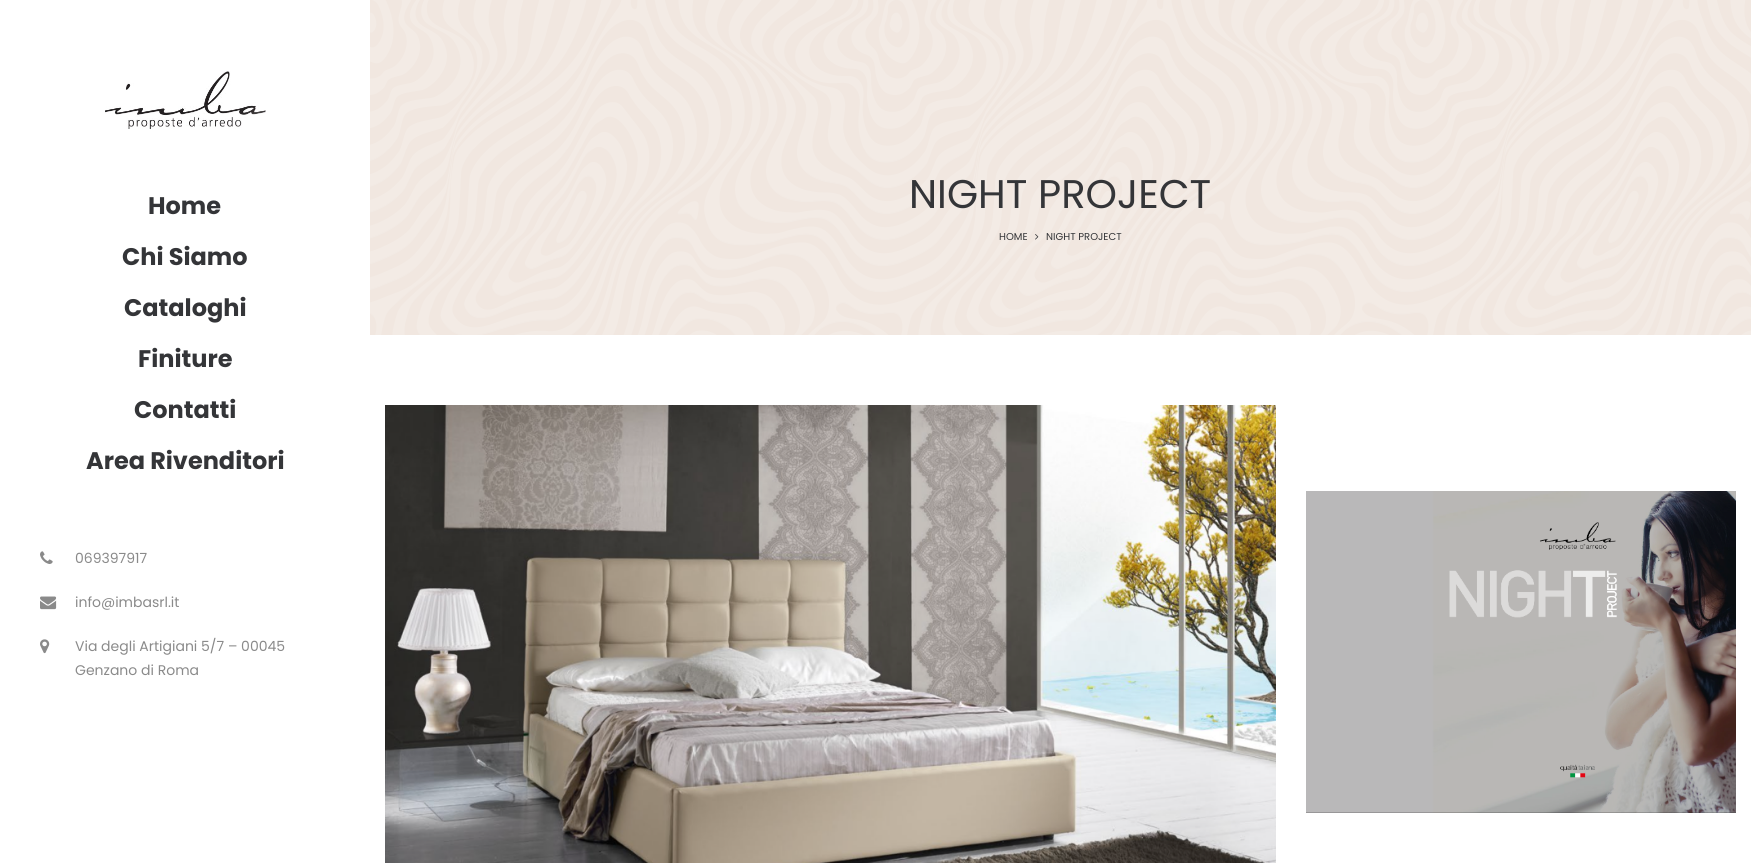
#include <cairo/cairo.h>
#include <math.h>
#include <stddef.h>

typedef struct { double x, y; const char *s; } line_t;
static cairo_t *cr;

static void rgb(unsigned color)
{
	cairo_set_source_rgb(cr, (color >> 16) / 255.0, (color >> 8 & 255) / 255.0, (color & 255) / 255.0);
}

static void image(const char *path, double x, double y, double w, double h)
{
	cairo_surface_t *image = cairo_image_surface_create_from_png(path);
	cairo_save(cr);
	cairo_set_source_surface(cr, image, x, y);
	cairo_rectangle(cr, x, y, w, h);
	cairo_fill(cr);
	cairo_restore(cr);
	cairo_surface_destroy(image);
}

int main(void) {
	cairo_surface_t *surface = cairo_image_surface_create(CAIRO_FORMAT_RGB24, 1751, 863);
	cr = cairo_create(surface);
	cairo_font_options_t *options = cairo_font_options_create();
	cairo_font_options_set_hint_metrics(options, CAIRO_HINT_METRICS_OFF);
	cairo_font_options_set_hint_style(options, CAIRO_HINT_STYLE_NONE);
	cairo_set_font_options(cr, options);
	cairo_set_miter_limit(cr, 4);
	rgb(0xffffff);
	cairo_paint(cr);
	image("img/1.png", 105, 71, 161, 58);
	image("img/2.png", 40, 551, 13, 13);
	image("img/3.png", 40, 596, 17, 14);
	image("img/4.png", 40, 639, 10, 15);
	image("img/5.png", 370, 0, 1381, 335);
	image("img/6.png", 1035, 234, 4, 6);
	image("img/7.png", 385, 405, 891, 458);
	image("img/8.png", 1306, 491, 430, 322);
	cairo_select_font_face(cr, "Poppins", CAIRO_FONT_SLANT_NORMAL, CAIRO_FONT_WEIGHT_BOLD);
	cairo_set_font_size(cr, 24);
	rgb(0x343538);
	{
		static const line_t items[] = {
			{148, 214, "Home"},
			{122, 265, "Chi Siamo"},
			{124, 316, "Cataloghi"},
			{138, 367, "Finiture"},
			{134, 418, "Contatti"},
			{86, 469, "Area Rivenditori"},
		};
		for (size_t i = 0; i < sizeof items / sizeof *items; i++) {
			cairo_move_to(cr, items[i].x, items[i].y);
			cairo_show_text(cr, items[i].s);
		}
	}
	cairo_select_font_face(cr, "Poppins", CAIRO_FONT_SLANT_NORMAL, CAIRO_FONT_WEIGHT_NORMAL);
	cairo_set_font_size(cr, 14);
	rgb(0x8a8a8a);
	{
		static const line_t items[] = {
			{75, 563, "069397917"},
			{75, 607, "info@imbasrl.it"},
			{75, 651, "Via degli Artigiani 5/7 – 00045"},
			{75, 675, "Genzano di Roma"},
		};
		for (size_t i = 0; i < sizeof items / sizeof *items; i++) {
			cairo_move_to(cr, items[i].x, items[i].y);
			cairo_show_text(cr, items[i].s);
		}
	}
	cairo_set_font_size(cr, 40);
	rgb(0x343538);
	cairo_move_to(cr, 909, 208);
	cairo_show_text(cr, "NIGHT PROJECT");
	cairo_set_font_size(cr, 10);
	cairo_move_to(cr, 999, 240);
	cairo_show_text(cr, "HOME");
	cairo_move_to(cr, 1046, 240);
	cairo_show_text(cr, "NIGHT PROJECT");
	cairo_surface_write_to_png(surface, "page.png");
	cairo_font_options_destroy(options);
	cairo_destroy(cr);
	cairo_surface_destroy(surface);
	return 0;
}
